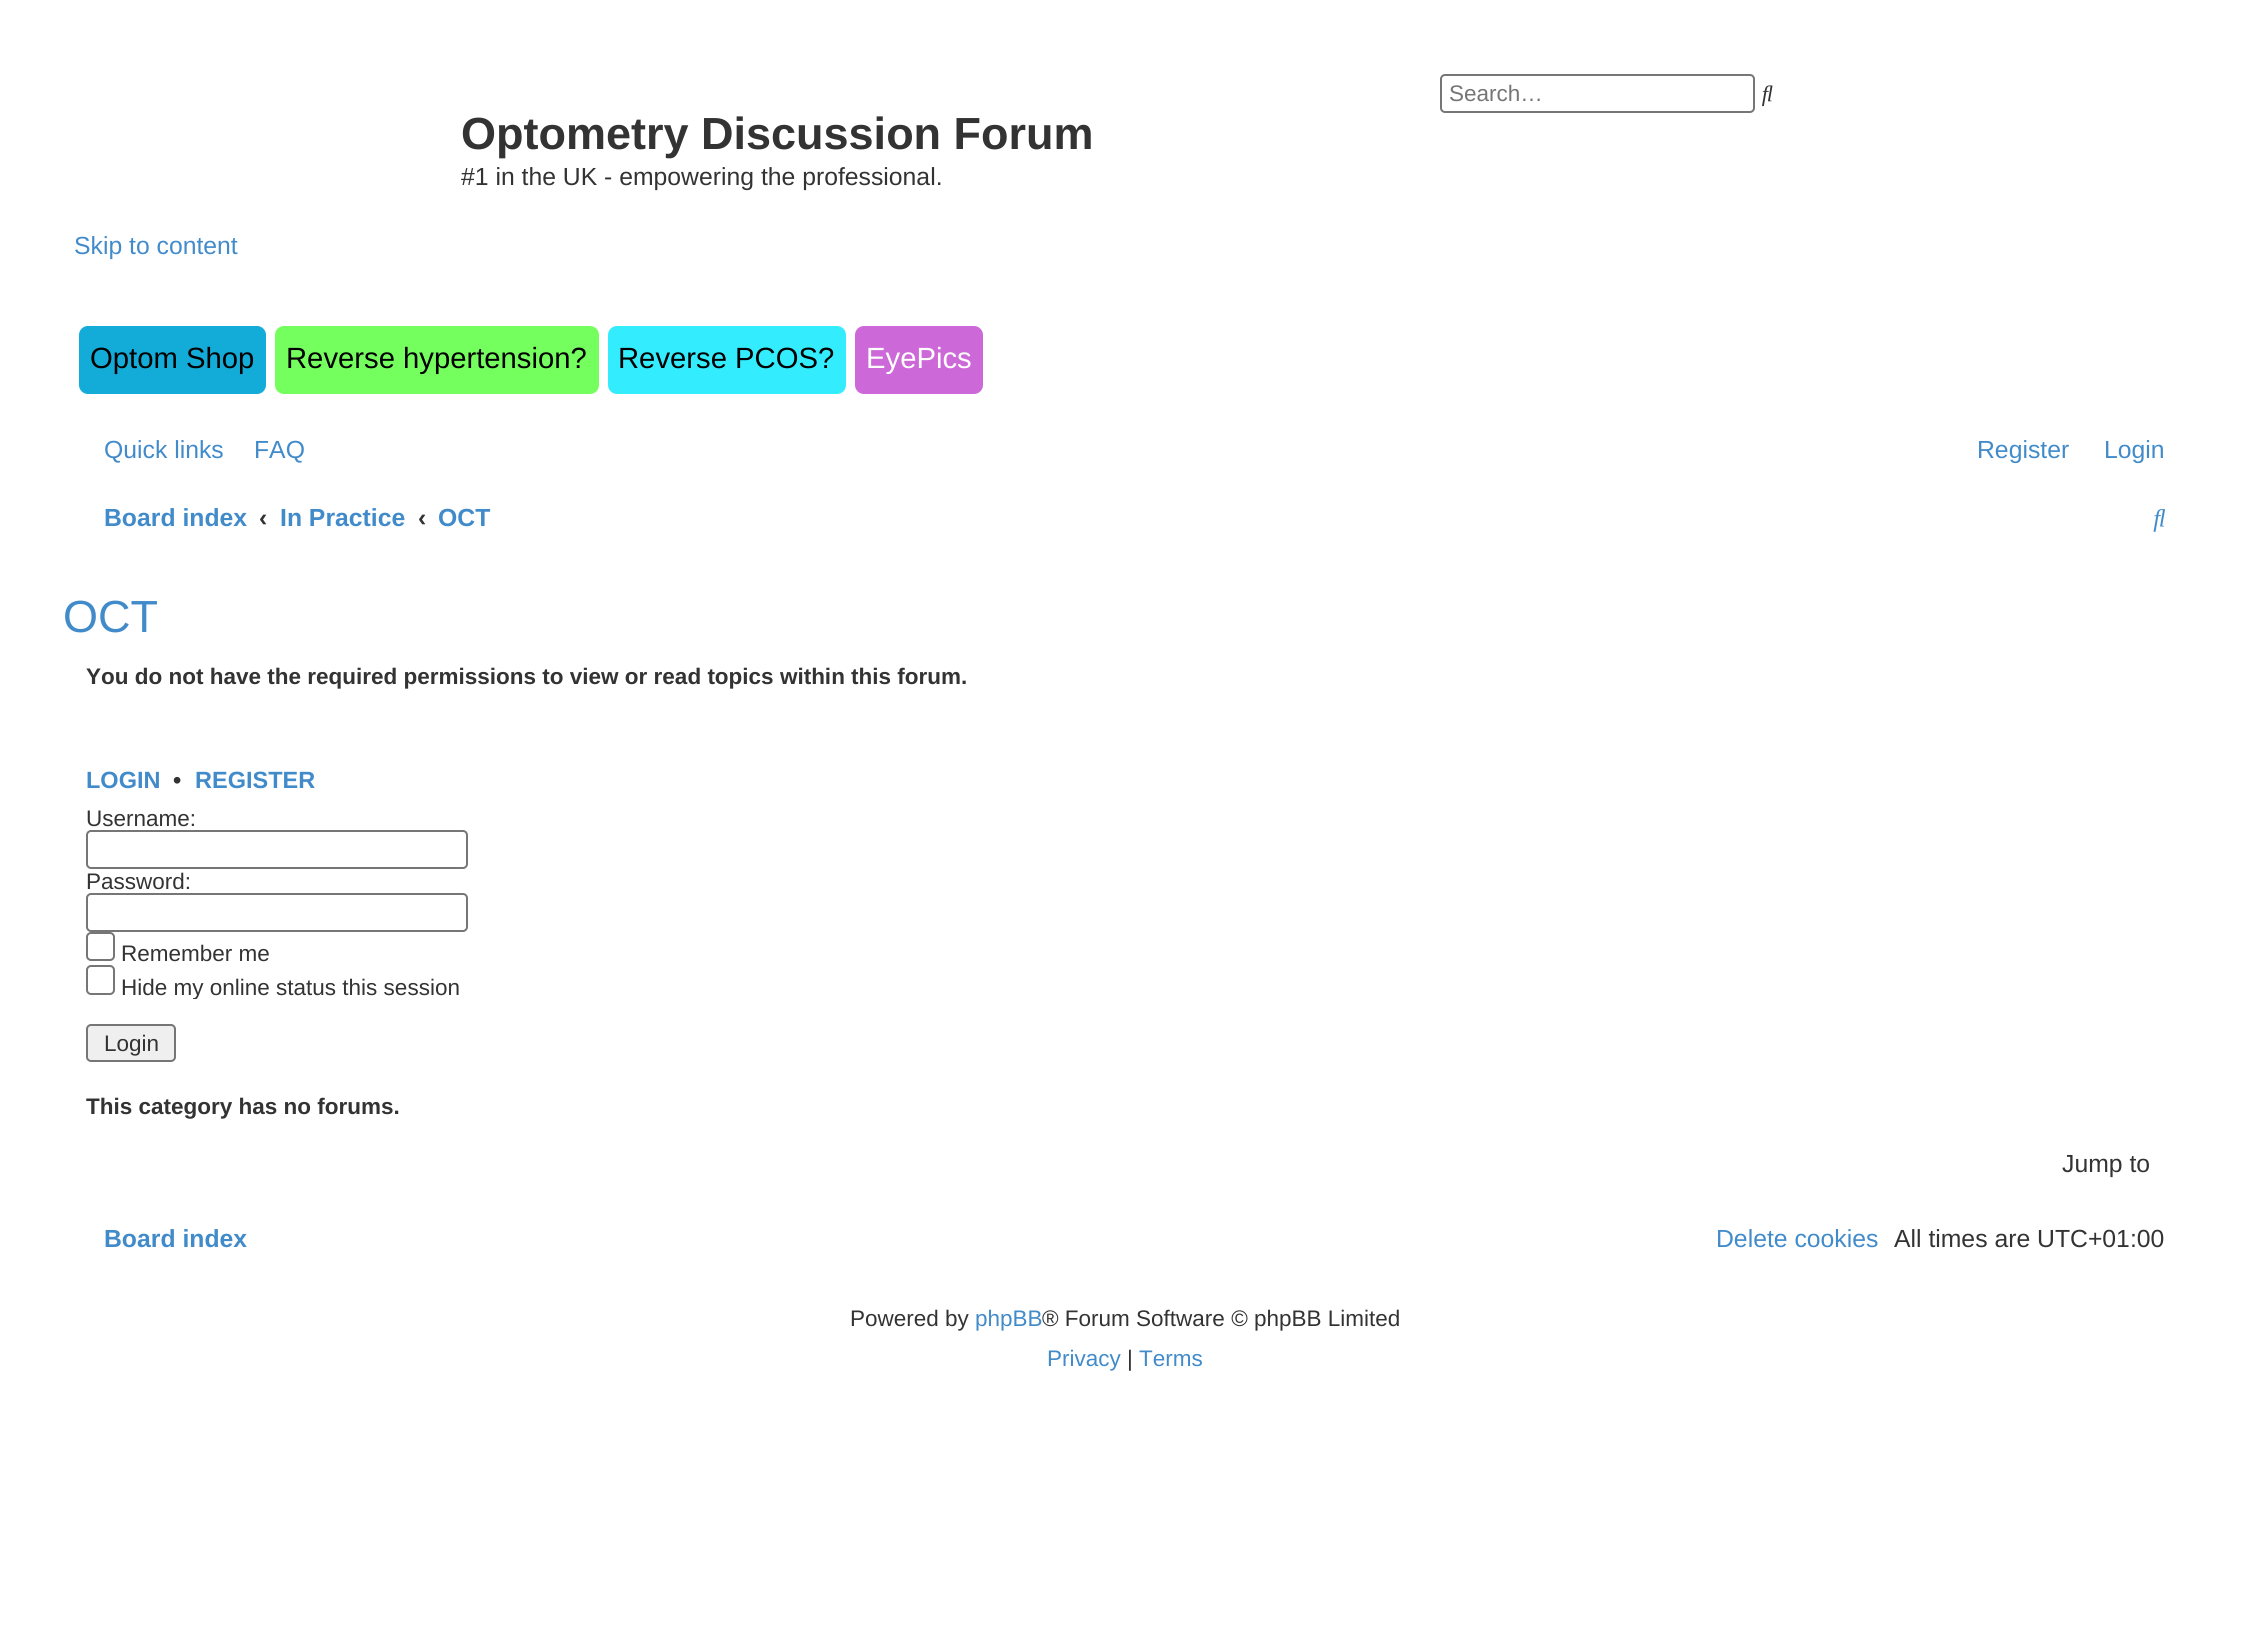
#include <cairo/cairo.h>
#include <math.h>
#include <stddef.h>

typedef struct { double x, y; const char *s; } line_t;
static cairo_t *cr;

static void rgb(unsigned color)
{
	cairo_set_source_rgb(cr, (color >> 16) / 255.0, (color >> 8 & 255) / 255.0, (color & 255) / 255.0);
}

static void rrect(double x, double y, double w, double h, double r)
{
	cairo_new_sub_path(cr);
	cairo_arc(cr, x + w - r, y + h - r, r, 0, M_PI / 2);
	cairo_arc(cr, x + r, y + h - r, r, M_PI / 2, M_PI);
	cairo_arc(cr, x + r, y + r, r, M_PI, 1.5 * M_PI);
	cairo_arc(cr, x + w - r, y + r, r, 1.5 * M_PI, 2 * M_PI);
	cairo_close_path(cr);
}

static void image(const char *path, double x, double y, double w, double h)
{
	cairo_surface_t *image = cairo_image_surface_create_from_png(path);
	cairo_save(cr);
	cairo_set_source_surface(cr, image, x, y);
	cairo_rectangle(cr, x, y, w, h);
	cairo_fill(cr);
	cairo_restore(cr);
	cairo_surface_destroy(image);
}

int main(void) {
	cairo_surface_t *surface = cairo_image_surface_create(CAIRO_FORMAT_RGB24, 2249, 1644);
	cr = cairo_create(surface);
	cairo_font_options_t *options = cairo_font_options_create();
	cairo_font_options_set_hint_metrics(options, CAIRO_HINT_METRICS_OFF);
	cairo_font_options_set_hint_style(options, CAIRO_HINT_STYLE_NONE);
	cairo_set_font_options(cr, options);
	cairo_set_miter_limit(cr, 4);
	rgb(0xffffff);
	cairo_paint(cr);
	rrect(1441, 75, 313, 37, 4);
	rgb(0x767676);
	cairo_stroke(cr);
	image("img/1.png", 1762, 85, 11, 22);
	rgb(0x13abd7);
	rrect(79, 326, 187, 68, 9);
	cairo_fill(cr);
	rgb(0x74ff5f);
	rrect(275, 326, 324, 68, 9);
	cairo_fill(cr);
	rgb(0x33edff);
	rrect(608, 326, 238, 68, 9);
	cairo_fill(cr);
	rgb(0xcc68d7);
	rrect(855, 326, 128, 68, 9);
	cairo_fill(cr);
	image("img/2.png", 2153, 509, 13, 23);
	rrect(87, 831, 380, 37, 4);
	rgb(0x767676);
	cairo_stroke(cr);
	rrect(87, 894, 380, 37, 4);
	cairo_stroke(cr);
	rrect(87, 933, 27, 27, 4);
	cairo_stroke(cr);
	rrect(87, 966, 27, 28, 4);
	cairo_stroke(cr);
	rgb(0xefefef);
	rrect(87, 1025, 88, 36, 4);
	cairo_fill_preserve(cr);
	rgb(0x767676);
	cairo_stroke(cr);
	cairo_select_font_face(cr, "Liberation Sans", CAIRO_FONT_SLANT_NORMAL, CAIRO_FONT_WEIGHT_NORMAL);
	cairo_set_font_size(cr, 22.5);
	rgb(0x757575);
	cairo_move_to(cr, 1449, 101);
	cairo_show_text(cr, "Search…");
	cairo_select_font_face(cr, "Liberation Sans", CAIRO_FONT_SLANT_NORMAL, CAIRO_FONT_WEIGHT_BOLD);
	cairo_set_font_size(cr, 45);
	rgb(0x333333);
	cairo_move_to(cr, 461, 149);
	cairo_show_text(cr, "Optometry Discussion Forum");
	cairo_select_font_face(cr, "Liberation Sans", CAIRO_FONT_SLANT_NORMAL, CAIRO_FONT_WEIGHT_NORMAL);
	cairo_set_font_size(cr, 24.75);
	cairo_move_to(cr, 461, 185);
	cairo_show_text(cr, "#1 in the UK - empowering the professional.");
	rgb(0x428bca);
	cairo_move_to(cr, 74, 254);
	cairo_show_text(cr, "Skip to content");
	cairo_set_font_size(cr, 29.25);
	rgb(0x000000);
	{
		static const line_t items[] = {
			{90, 368, "Optom Shop"},
			{286, 368, "Reverse hypertension?"},
			{618, 368, "Reverse PCOS?"},
		};
		for (size_t i = 0; i < sizeof items / sizeof *items; i++) {
			cairo_move_to(cr, items[i].x, items[i].y);
			cairo_show_text(cr, items[i].s);
		}
	}
	rgb(0xffffff);
	cairo_move_to(cr, 866, 368);
	cairo_show_text(cr, "EyePics");
	cairo_set_font_size(cr, 24.75);
	rgb(0x428bca);
	{
		static const line_t items[] = {
			{104, 458, "Quick links"},
			{254, 458, "FAQ"},
			{1977, 458, "Register"},
			{2104, 458, "Login"},
		};
		for (size_t i = 0; i < sizeof items / sizeof *items; i++) {
			cairo_move_to(cr, items[i].x, items[i].y);
			cairo_show_text(cr, items[i].s);
		}
	}
	cairo_select_font_face(cr, "Liberation Sans", CAIRO_FONT_SLANT_NORMAL, CAIRO_FONT_WEIGHT_BOLD);
	cairo_move_to(cr, 104, 526);
	cairo_show_text(cr, "Board index");
	rgb(0x333333);
	cairo_move_to(cr, 259, 526);
	cairo_show_text(cr, "‹");
	rgb(0x428bca);
	cairo_move_to(cr, 280, 526);
	cairo_show_text(cr, "In Practice");
	rgb(0x333333);
	cairo_move_to(cr, 418, 526);
	cairo_show_text(cr, "‹");
	rgb(0x428bca);
	cairo_move_to(cr, 438, 526);
	cairo_show_text(cr, "OCT");
	cairo_select_font_face(cr, "Liberation Sans", CAIRO_FONT_SLANT_NORMAL, CAIRO_FONT_WEIGHT_NORMAL);
	cairo_set_font_size(cr, 45);
	cairo_move_to(cr, 63, 632);
	cairo_show_text(cr, "OCT");
	cairo_select_font_face(cr, "Liberation Sans", CAIRO_FONT_SLANT_NORMAL, CAIRO_FONT_WEIGHT_BOLD);
	cairo_set_font_size(cr, 22.5);
	rgb(0x333333);
	cairo_move_to(cr, 86, 684);
	cairo_show_text(cr, "You do not have the required permissions to view or read topics within this forum.");
	cairo_set_font_size(cr, 23.5);
	rgb(0x428bca);
	cairo_move_to(cr, 86, 788);
	cairo_show_text(cr, "LOGIN");
	rgb(0x333333);
	cairo_move_to(cr, 173, 788);
	cairo_show_text(cr, "•");
	rgb(0x428bca);
	cairo_move_to(cr, 195, 788);
	cairo_show_text(cr, "REGISTER");
	cairo_select_font_face(cr, "Liberation Sans", CAIRO_FONT_SLANT_NORMAL, CAIRO_FONT_WEIGHT_NORMAL);
	cairo_set_font_size(cr, 22.5);
	rgb(0x333333);
	{
		static const line_t items[] = {
			{86, 826, "Username:"},
			{86, 889, "Password:"},
			{121, 961, "Remember me"},
		};
		for (size_t i = 0; i < sizeof items / sizeof *items; i++) {
			cairo_move_to(cr, items[i].x, items[i].y);
			cairo_show_text(cr, items[i].s);
		}
	}
	cairo_save(cr);
	cairo_rectangle(cr, 86, 869, 2079, 130);
	cairo_clip(cr);
	cairo_move_to(cr, 121, 995);
	cairo_show_text(cr, "Hide my online status this session");
	cairo_restore(cr);
	cairo_move_to(cr, 104, 1051);
	cairo_show_text(cr, "Login");
	cairo_select_font_face(cr, "Liberation Sans", CAIRO_FONT_SLANT_NORMAL, CAIRO_FONT_WEIGHT_BOLD);
	cairo_move_to(cr, 86, 1114);
	cairo_show_text(cr, "This category has no forums.");
	cairo_select_font_face(cr, "Liberation Sans", CAIRO_FONT_SLANT_NORMAL, CAIRO_FONT_WEIGHT_NORMAL);
	cairo_set_font_size(cr, 24.75);
	cairo_move_to(cr, 2062, 1172);
	cairo_show_text(cr, "Jump to");
	cairo_select_font_face(cr, "Liberation Sans", CAIRO_FONT_SLANT_NORMAL, CAIRO_FONT_WEIGHT_BOLD);
	rgb(0x428bca);
	cairo_move_to(cr, 104, 1247);
	cairo_show_text(cr, "Board index");
	cairo_select_font_face(cr, "Liberation Sans", CAIRO_FONT_SLANT_NORMAL, CAIRO_FONT_WEIGHT_NORMAL);
	cairo_move_to(cr, 1716, 1247);
	cairo_show_text(cr, "Delete cookies");
	rgb(0x333333);
	cairo_move_to(cr, 1894, 1247);
	cairo_show_text(cr, "All times are UTC+01:00");
	cairo_set_font_size(cr, 22.5);
	cairo_move_to(cr, 850, 1326);
	cairo_show_text(cr, "Powered by");
	rgb(0x428bca);
	cairo_move_to(cr, 975, 1326);
	cairo_show_text(cr, "phpBB");
	rgb(0x333333);
	cairo_move_to(cr, 1042, 1326);
	cairo_show_text(cr, "® Forum Software © phpBB Limited");
	rgb(0x428bca);
	cairo_move_to(cr, 1047, 1366);
	cairo_show_text(cr, "Privacy");
	rgb(0x333333);
	cairo_move_to(cr, 1127, 1366);
	cairo_show_text(cr, "|");
	rgb(0x428bca);
	cairo_move_to(cr, 1139, 1366);
	cairo_show_text(cr, "Terms");
	cairo_surface_write_to_png(surface, "page.png");
	cairo_font_options_destroy(options);
	cairo_destroy(cr);
	cairo_surface_destroy(surface);
	return 0;
}
